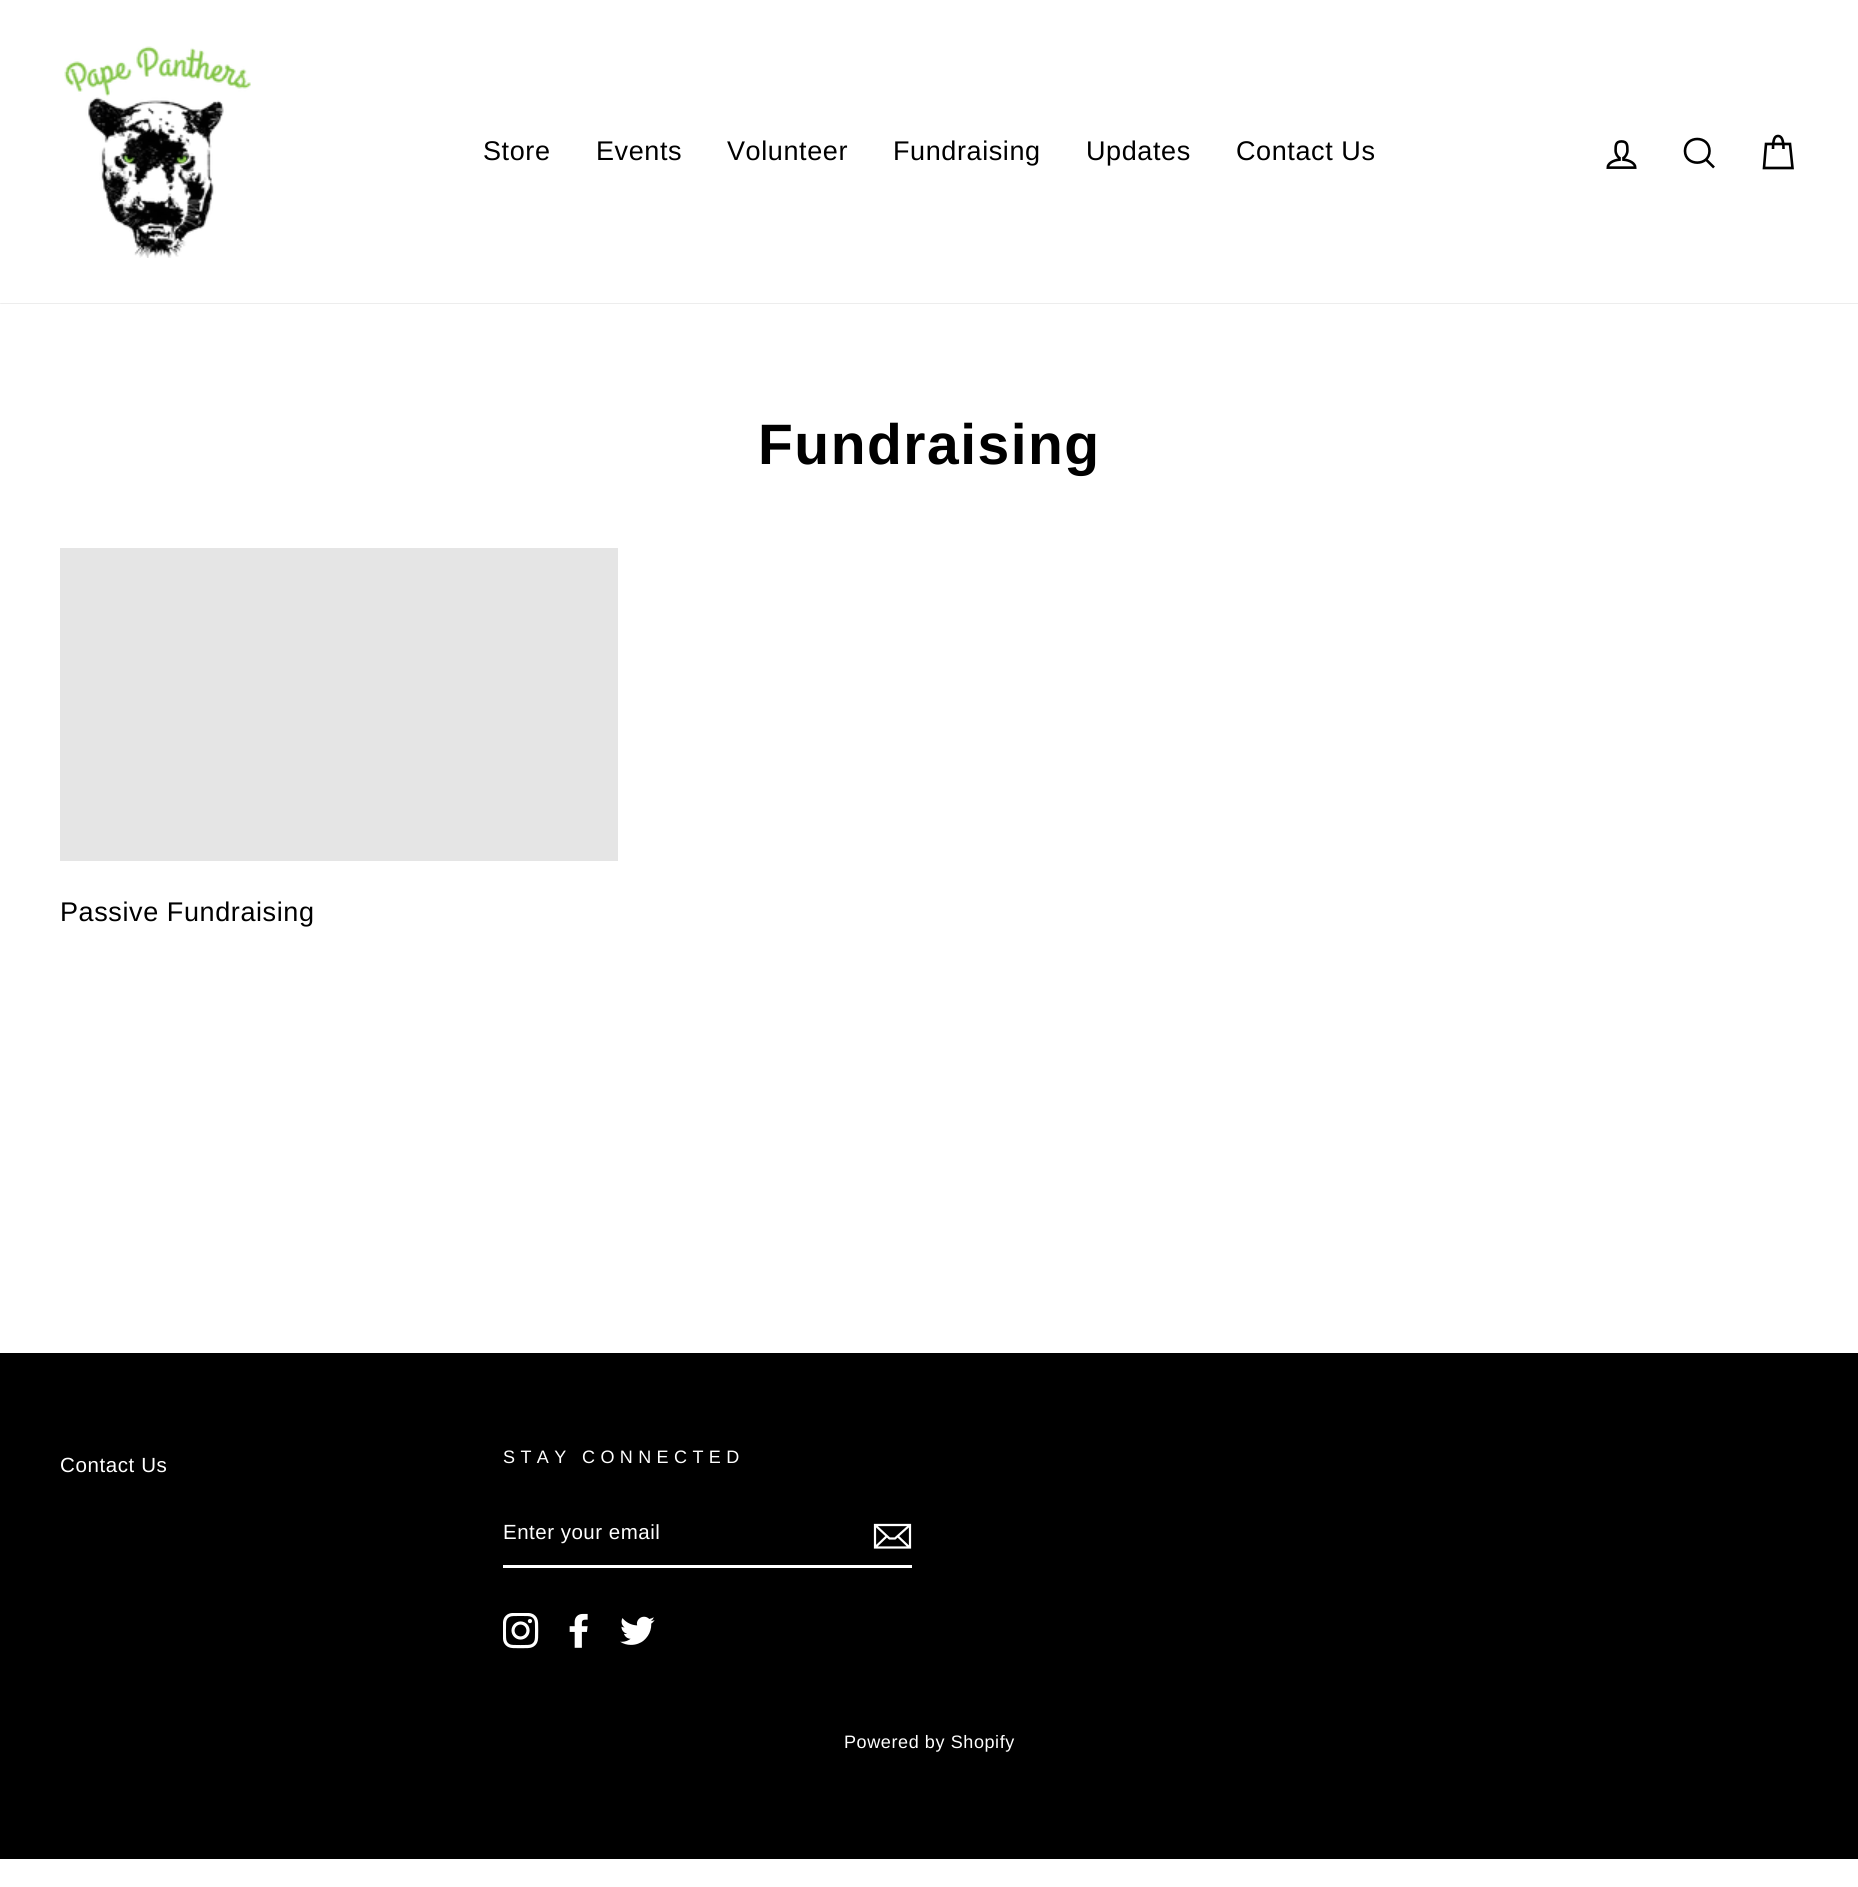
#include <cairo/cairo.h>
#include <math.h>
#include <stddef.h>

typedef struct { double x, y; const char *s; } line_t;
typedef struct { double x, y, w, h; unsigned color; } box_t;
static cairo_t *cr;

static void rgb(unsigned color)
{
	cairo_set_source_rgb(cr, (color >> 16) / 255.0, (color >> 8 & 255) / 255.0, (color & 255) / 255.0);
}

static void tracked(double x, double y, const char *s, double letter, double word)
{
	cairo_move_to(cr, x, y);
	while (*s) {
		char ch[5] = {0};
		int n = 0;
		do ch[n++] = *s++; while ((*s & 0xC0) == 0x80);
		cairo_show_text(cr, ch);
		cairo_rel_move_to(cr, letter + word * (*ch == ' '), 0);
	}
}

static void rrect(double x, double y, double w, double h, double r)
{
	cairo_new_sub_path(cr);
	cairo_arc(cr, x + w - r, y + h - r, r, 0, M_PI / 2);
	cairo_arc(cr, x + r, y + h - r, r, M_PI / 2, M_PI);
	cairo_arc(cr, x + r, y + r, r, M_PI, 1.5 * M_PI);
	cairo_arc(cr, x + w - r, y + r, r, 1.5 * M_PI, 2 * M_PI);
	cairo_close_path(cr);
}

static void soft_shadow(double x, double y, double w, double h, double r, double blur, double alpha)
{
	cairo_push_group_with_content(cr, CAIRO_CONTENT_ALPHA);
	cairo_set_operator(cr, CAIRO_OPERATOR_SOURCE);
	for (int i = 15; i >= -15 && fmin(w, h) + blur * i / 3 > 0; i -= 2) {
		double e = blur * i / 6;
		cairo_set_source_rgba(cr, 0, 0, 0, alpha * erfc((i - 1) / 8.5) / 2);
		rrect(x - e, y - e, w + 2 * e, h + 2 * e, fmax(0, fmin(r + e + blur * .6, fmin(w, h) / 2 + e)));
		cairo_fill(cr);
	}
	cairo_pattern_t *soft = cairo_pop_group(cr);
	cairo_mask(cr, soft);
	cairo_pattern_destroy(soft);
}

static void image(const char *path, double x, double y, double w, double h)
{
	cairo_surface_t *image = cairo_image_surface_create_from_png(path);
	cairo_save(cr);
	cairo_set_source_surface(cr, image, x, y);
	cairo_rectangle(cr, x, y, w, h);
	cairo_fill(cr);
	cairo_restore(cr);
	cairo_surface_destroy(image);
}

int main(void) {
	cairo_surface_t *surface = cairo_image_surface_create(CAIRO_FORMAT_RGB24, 1858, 1887);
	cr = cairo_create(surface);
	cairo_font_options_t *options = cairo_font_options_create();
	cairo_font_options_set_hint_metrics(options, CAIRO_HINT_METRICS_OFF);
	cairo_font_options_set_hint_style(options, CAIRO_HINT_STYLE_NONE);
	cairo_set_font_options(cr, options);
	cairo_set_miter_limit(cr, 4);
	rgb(0xffffff);
	cairo_paint(cr);
	cairo_save(cr);
	cairo_rectangle(cr, 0, 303, 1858, 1);
	cairo_clip(cr);
	rgb(0x000000);
	soft_shadow(0, 0, 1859, 303, 0, 1, 0.2);
	cairo_restore(cr);
	image("img/1.png", 64, 46, 187, 212);
	image("img/2.png", 1606, 140, 31, 29);
	cairo_new_path(cr);
	cairo_move_to(cr, 1709.5, 151);
	cairo_curve_to(cr, 1709.5, 166.5, 1685, 166.5, 1685, 151);
	cairo_curve_to(cr, 1685, 135, 1709.5, 135, 1709.5, 151);
	cairo_close_path(cr);
	cairo_move_to(cr, 1714, 167.5);
	cairo_line_to(cr, 1706, 159.5);
	rgb(0x000000);
	cairo_set_line_width(cr, 2.6);
	cairo_stroke(cr);
	cairo_new_path(cr);
	cairo_move_to(cr, 1773, 149);
	cairo_curve_to(cr, 1773, 138.5, 1775, 136, 1778, 136);
	cairo_curve_to(cr, 1781, 136, 1783.5, 138.5, 1783.5, 149);
	cairo_move_to(cr, 1766, 144);
	cairo_line_to(cr, 1790, 144);
	cairo_line_to(cr, 1792.5, 168);
	cairo_line_to(cr, 1764, 168);
	cairo_close_path(cr);
	cairo_stroke(cr);
	{
		static const box_t items[] = {
			{60, 548, 558, 313, 0xe5e5e5},
			{0, 1353, 1858, 506, 0x000000},
			{503, 1565, 409, 3, 0xffffff},
		};
		for (size_t i = 0; i < sizeof items / sizeof *items; i++) {
			rgb(items[i].color);
			cairo_rectangle(cr, items[i].x, items[i].y, items[i].w, items[i].h);
			cairo_fill(cr);
		}
	}
	cairo_new_path(cr);
	cairo_move_to(cr, 910, 1547.5);
	cairo_line_to(cr, 875, 1547.5);
	cairo_line_to(cr, 875, 1525);
	cairo_line_to(cr, 910, 1525);
	cairo_close_path(cr);
	cairo_move_to(cr, 875, 1525);
	cairo_line_to(cr, 889.5, 1538.5);
	cairo_line_to(cr, 895, 1538.5);
	cairo_line_to(cr, 910, 1525);
	cairo_move_to(cr, 887, 1536);
	cairo_line_to(cr, 875.5, 1547);
	cairo_move_to(cr, 909.5, 1547.5);
	cairo_line_to(cr, 897.5, 1536);
	cairo_set_line_width(cr, 2.2);
	cairo_stroke(cr);
	image("img/3.png", 503, 1613, 36, 36);
	image("img/4.png", 569, 1613, 19, 35);
	image("img/5.png", 620, 1616, 35, 29);
	cairo_select_font_face(cr, "Arimo", CAIRO_FONT_SLANT_NORMAL, CAIRO_FONT_WEIGHT_NORMAL);
	cairo_set_font_size(cr, 27);
	rgb(0x000000);
	{
		static const line_t items[] = {
			{483, 160, "Store"},
			{596, 160, "Events"},
			{727, 160, "Volunteer"},
			{893, 160, "Fundraising"},
			{1086, 160, "Updates"},
			{1236, 160, "Contact Us"},
		};
		for (size_t i = 0; i < sizeof items / sizeof *items; i++) {
			tracked(items[i].x, items[i].y, items[i].s, 0.6, 0);
		}
	}
	cairo_select_font_face(cr, "Arimo", CAIRO_FONT_SLANT_NORMAL, CAIRO_FONT_WEIGHT_BOLD);
	cairo_set_font_size(cr, 57);
	tracked(758, 464, "Fundraising", 1.5, 0);
	cairo_select_font_face(cr, "Arimo", CAIRO_FONT_SLANT_NORMAL, CAIRO_FONT_WEIGHT_NORMAL);
	cairo_set_font_size(cr, 27);
	tracked(60, 921, "Passive Fundraising", 0.6, 0);
	cairo_set_font_size(cr, 20.5);
	rgb(0xffffff);
	tracked(60, 1472, "Contact Us", 0.6, 0);
	cairo_set_font_size(cr, 18);
	tracked(503, 1463, "STAY CONNECTED", 5.4, 0);
	cairo_set_font_size(cr, 20.5);
	tracked(503, 1539, "Enter your email", 0.5, 0);
	cairo_set_font_size(cr, 18);
	tracked(844, 1748, "Powered by Shopify", 0.6, 0);
	cairo_surface_write_to_png(surface, "page.png");
	cairo_font_options_destroy(options);
	cairo_destroy(cr);
	cairo_surface_destroy(surface);
	return 0;
}
